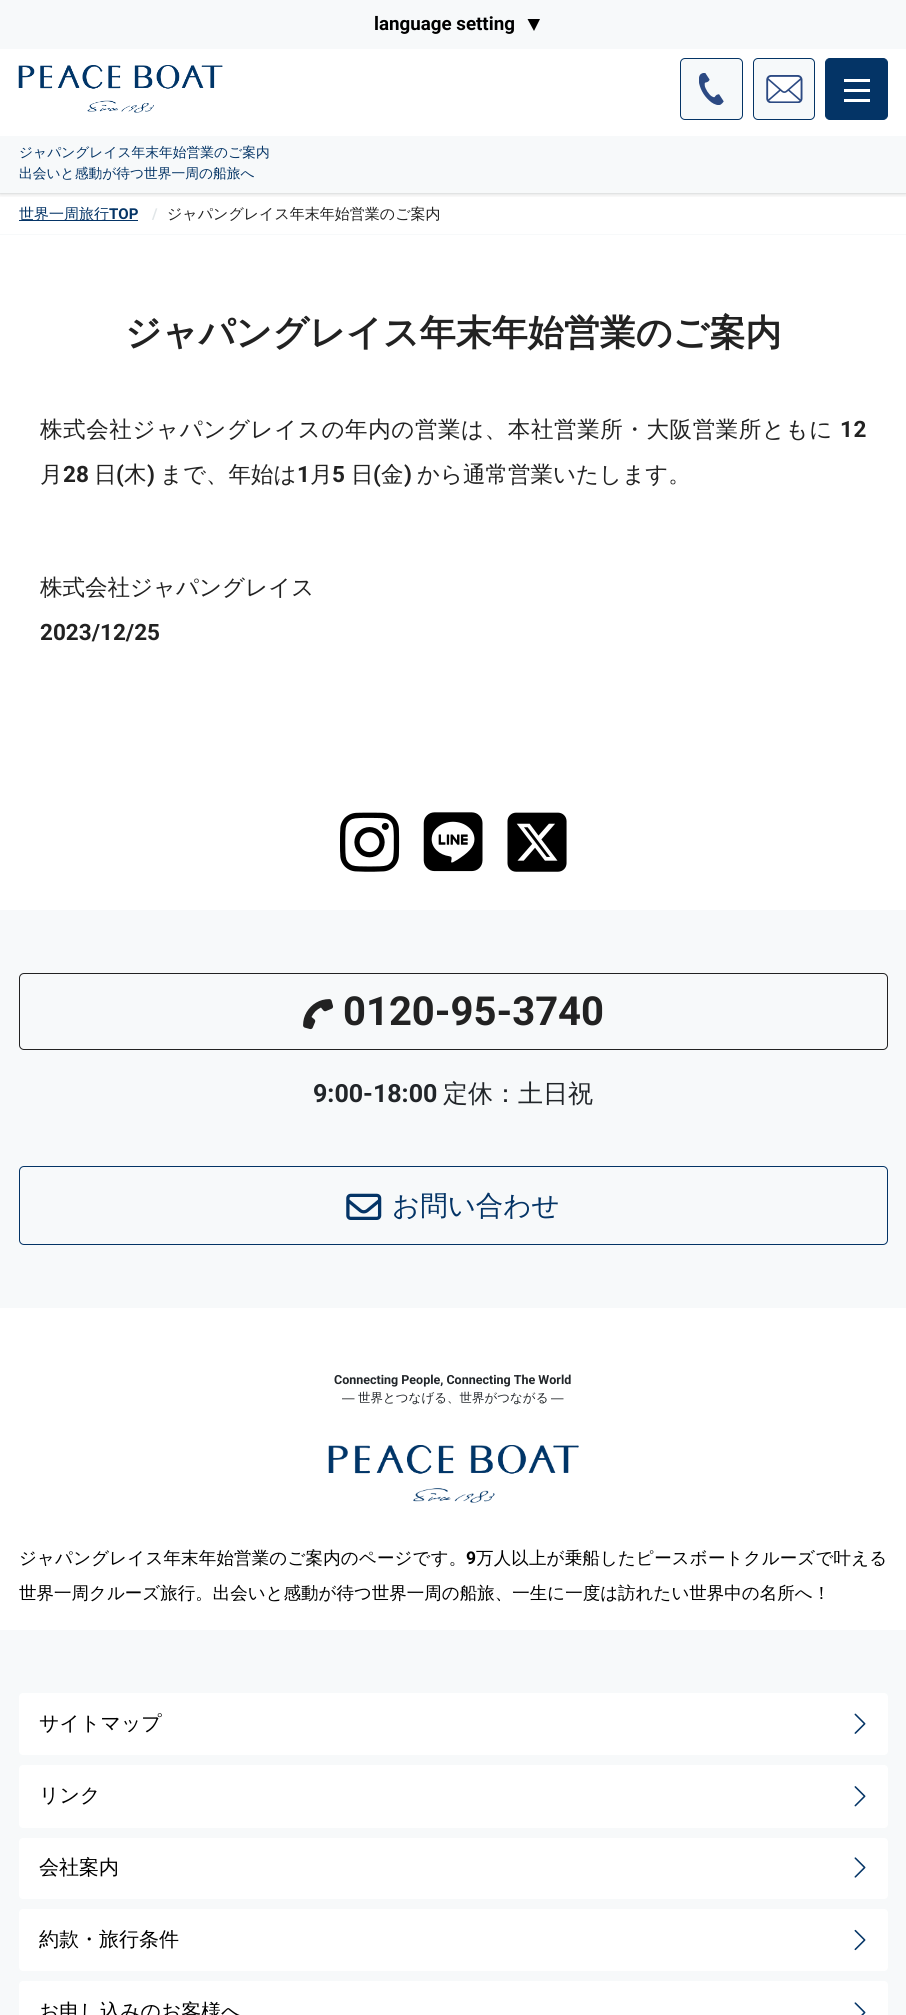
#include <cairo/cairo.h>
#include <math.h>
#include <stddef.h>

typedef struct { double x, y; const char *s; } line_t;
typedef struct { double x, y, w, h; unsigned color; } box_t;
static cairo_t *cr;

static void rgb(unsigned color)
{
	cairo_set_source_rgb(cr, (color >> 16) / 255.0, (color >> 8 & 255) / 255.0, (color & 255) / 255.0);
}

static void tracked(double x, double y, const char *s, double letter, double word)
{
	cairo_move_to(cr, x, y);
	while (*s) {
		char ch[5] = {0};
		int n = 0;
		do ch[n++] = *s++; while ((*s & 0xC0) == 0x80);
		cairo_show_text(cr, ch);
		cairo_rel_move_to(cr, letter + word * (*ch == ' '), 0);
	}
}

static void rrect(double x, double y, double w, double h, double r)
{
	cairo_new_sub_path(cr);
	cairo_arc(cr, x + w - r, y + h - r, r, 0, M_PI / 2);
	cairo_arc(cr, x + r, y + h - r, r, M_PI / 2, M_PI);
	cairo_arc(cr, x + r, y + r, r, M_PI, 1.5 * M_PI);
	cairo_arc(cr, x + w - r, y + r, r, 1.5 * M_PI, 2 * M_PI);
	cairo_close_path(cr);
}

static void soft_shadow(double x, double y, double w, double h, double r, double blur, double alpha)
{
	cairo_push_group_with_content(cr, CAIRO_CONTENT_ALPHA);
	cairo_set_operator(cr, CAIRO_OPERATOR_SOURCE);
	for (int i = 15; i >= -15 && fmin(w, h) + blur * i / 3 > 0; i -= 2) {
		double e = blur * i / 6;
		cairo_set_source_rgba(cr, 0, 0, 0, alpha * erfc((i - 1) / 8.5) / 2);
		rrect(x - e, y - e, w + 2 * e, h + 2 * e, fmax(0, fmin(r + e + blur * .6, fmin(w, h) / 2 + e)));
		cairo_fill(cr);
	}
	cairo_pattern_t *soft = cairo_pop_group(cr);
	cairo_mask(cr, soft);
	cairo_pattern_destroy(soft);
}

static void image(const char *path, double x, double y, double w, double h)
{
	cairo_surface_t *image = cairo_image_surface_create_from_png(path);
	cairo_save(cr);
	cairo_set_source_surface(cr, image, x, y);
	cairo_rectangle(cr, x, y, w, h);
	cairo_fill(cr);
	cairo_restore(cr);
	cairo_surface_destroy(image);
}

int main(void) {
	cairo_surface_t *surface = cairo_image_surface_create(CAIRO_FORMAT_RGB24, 906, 2015);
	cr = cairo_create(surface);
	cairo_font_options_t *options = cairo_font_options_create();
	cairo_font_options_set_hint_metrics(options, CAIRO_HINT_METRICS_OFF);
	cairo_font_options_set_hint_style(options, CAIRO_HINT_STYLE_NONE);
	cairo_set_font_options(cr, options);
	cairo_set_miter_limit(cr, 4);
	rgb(0xffffff);
	cairo_paint(cr);
	rgb(0xf7f9fa);
	cairo_rectangle(cr, 0, 193, 906, 1);
	cairo_fill(cr);
	cairo_save(cr);
	cairo_rectangle(cr, 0, 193, 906, 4);
	cairo_clip(cr);
	rgb(0x000000);
	soft_shadow(0, 1, 906, 193, 0, 2.5, 0.16);
	cairo_restore(cr);
	cairo_rectangle(cr, 0, 0, 906, 49);
	cairo_fill(cr);
	rgb(0x000000);
	cairo_new_path(cr);
	cairo_move_to(cr, 527.5, 19);
	cairo_line_to(cr, 540, 19);
	cairo_line_to(cr, 534, 31);
	cairo_close_path(cr);
	cairo_fill(cr);
	image("img/1.png", 18, 65, 205, 48);
	rgb(0xf6f9fa);
	rrect(680.5, 58.5, 62, 61, 4.5);
	cairo_fill_preserve(cr);
	rgb(0x043466);
	cairo_set_line_width(cr, 1);
	cairo_stroke(cr);
	image("img/2.png", 699, 73, 25, 32);
	rgb(0xf6f9fa);
	rrect(753.5, 58.5, 61, 61, 4.5);
	cairo_fill_preserve(cr);
	rgb(0x043466);
	cairo_stroke(cr);
	image("img/3.png", 766, 75, 37, 28);
	rrect(825.5, 58.5, 62, 61, 4.5);
	cairo_fill_preserve(cr);
	cairo_stroke(cr);
	{
		static const box_t items[] = {
			{844, 79, 26, 3, 0xffffff},
			{844, 89, 26, 3, 0xffffff},
			{844, 99, 26, 3, 0xffffff},
			{0, 136, 906, 57, 0xf7f9fa},
			{0, 234, 906, 1, 0xf7f9fa},
			{19, 220, 119, 1, 0x043466},
		};
		for (size_t i = 0; i < sizeof items / sizeof *items; i++) {
			rgb(items[i].color);
			cairo_rectangle(cr, items[i].x, items[i].y, items[i].w, items[i].h);
			cairo_fill(cr);
		}
	}
	image("img/4.png", 340, 812, 60, 60);
	image("img/5.png", 423, 812, 60, 60);
	image("img/6.png", 507, 812, 60, 60);
	rgb(0xf7f9fa);
	cairo_rectangle(cr, 0, 910, 906, 398);
	cairo_fill(cr);
	rrect(19.5, 973.5, 868, 76, 4.5);
	rgb(0x222222);
	cairo_stroke(cr);
	image("img/7.png", 303, 999, 31, 31);
	rrect(19.5, 1166.5, 868, 78, 4.5);
	rgb(0x043466);
	cairo_stroke(cr);
	image("img/8.png", 346, 1193, 36, 27);
	image("img/9.png", 328, 1445, 251, 58);
	rgb(0xf7f9fa);
	cairo_rectangle(cr, 0, 1630, 906, 385);
	cairo_fill(cr);
	rgb(0xffffff);
	rrect(19, 1693, 869, 62, 4);
	cairo_fill(cr);
	image("img/10.png", 854, 1713, 12, 21);
	rrect(19, 1765, 869, 63, 4);
	cairo_fill(cr);
	image("img/11.png", 854, 1786, 12, 21);
	rrect(19, 1838, 869, 61, 4);
	cairo_fill(cr);
	image("img/12.png", 854, 1857, 12, 21);
	rrect(19, 1909, 869, 62, 4);
	cairo_fill(cr);
	image("img/13.png", 854, 1929, 12, 22);
	rrect(19, 1981, 869, 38, 4);
	cairo_fill(cr);
	image("img/14.png", 854, 2002, 12, 13);
	cairo_select_font_face(cr, "Roboto", CAIRO_FONT_SLANT_NORMAL, CAIRO_FONT_WEIGHT_BOLD);
	cairo_set_font_size(cr, 18.75);
	rgb(0x000000);
	cairo_move_to(cr, 374, 30);
	cairo_show_text(cr, "language setting");
	cairo_select_font_face(cr, "WenQuanYi Zen Hei Medium", CAIRO_FONT_SLANT_NORMAL, CAIRO_FONT_WEIGHT_NORMAL);
	cairo_set_font_size(cr, 13.75);
	rgb(0x043466);
	cairo_move_to(cr, 19, 157);
	cairo_show_text(cr, "ジャパングレイス年末年始営業のご案内");
	cairo_move_to(cr, 19, 178);
	cairo_show_text(cr, "出会いと感動が待つ世界一周の船旅へ");
	cairo_set_font_size(cr, 15);
	cairo_move_to(cr, 19, 219);
	cairo_show_text(cr, "世界一周旅行");
	cairo_select_font_face(cr, "Roboto", CAIRO_FONT_SLANT_NORMAL, CAIRO_FONT_WEIGHT_BOLD);
	cairo_move_to(cr, 109, 219);
	cairo_show_text(cr, "TOP");
	rgb(0xe1e6e8);
	cairo_move_to(cr, 152, 219);
	cairo_show_text(cr, "/");
	cairo_select_font_face(cr, "WenQuanYi Zen Hei Medium", CAIRO_FONT_SLANT_NORMAL, CAIRO_FONT_WEIGHT_NORMAL);
	rgb(0x222222);
	cairo_move_to(cr, 167, 219);
	cairo_show_text(cr, "ジャパングレイス年末年始営業のご案内");
	cairo_select_font_face(cr, "WenQuanYi Zen Hei", CAIRO_FONT_SLANT_NORMAL, CAIRO_FONT_WEIGHT_BOLD);
	cairo_set_font_size(cr, 36);
	cairo_move_to(cr, 125, 345);
	cairo_show_text(cr, "ジャパングレイス年末年始営業のご案内");
	cairo_select_font_face(cr, "WenQuanYi Zen Hei Medium", CAIRO_FONT_SLANT_NORMAL, CAIRO_FONT_WEIGHT_NORMAL);
	cairo_set_font_size(cr, 22.5);
	tracked(40, 437, "株式会社ジャパングレイスの年内の営業は、本社営業所・大阪営業所ともに", 0.6, 0);
	cairo_select_font_face(cr, "Roboto", CAIRO_FONT_SLANT_NORMAL, CAIRO_FONT_WEIGHT_BOLD);
	tracked(840, 437, "12", 0.6, 0);
	cairo_select_font_face(cr, "WenQuanYi Zen Hei Medium", CAIRO_FONT_SLANT_NORMAL, CAIRO_FONT_WEIGHT_NORMAL);
	cairo_move_to(cr, 40, 482);
	cairo_show_text(cr, "月");
	cairo_select_font_face(cr, "Roboto", CAIRO_FONT_SLANT_NORMAL, CAIRO_FONT_WEIGHT_BOLD);
	cairo_move_to(cr, 63, 482);
	cairo_show_text(cr, "28");
	cairo_select_font_face(cr, "WenQuanYi Zen Hei Medium", CAIRO_FONT_SLANT_NORMAL, CAIRO_FONT_WEIGHT_NORMAL);
	cairo_move_to(cr, 94, 482);
	cairo_show_text(cr, "日");
	cairo_select_font_face(cr, "Roboto", CAIRO_FONT_SLANT_NORMAL, CAIRO_FONT_WEIGHT_BOLD);
	cairo_move_to(cr, 116, 482);
	cairo_show_text(cr, "(");
	cairo_select_font_face(cr, "WenQuanYi Zen Hei Medium", CAIRO_FONT_SLANT_NORMAL, CAIRO_FONT_WEIGHT_NORMAL);
	cairo_move_to(cr, 124, 482);
	cairo_show_text(cr, "木");
	cairo_select_font_face(cr, "Roboto", CAIRO_FONT_SLANT_NORMAL, CAIRO_FONT_WEIGHT_BOLD);
	cairo_move_to(cr, 147, 482);
	cairo_show_text(cr, ")");
	cairo_select_font_face(cr, "WenQuanYi Zen Hei Medium", CAIRO_FONT_SLANT_NORMAL, CAIRO_FONT_WEIGHT_NORMAL);
	cairo_move_to(cr, 160, 482);
	cairo_show_text(cr, "まで、年始は");
	cairo_select_font_face(cr, "Roboto", CAIRO_FONT_SLANT_NORMAL, CAIRO_FONT_WEIGHT_BOLD);
	cairo_move_to(cr, 297, 482);
	cairo_show_text(cr, "1");
	cairo_select_font_face(cr, "WenQuanYi Zen Hei Medium", CAIRO_FONT_SLANT_NORMAL, CAIRO_FONT_WEIGHT_NORMAL);
	cairo_move_to(cr, 310, 482);
	cairo_show_text(cr, "月");
	cairo_select_font_face(cr, "Roboto", CAIRO_FONT_SLANT_NORMAL, CAIRO_FONT_WEIGHT_BOLD);
	cairo_move_to(cr, 332, 482);
	cairo_show_text(cr, "5");
	cairo_select_font_face(cr, "WenQuanYi Zen Hei Medium", CAIRO_FONT_SLANT_NORMAL, CAIRO_FONT_WEIGHT_NORMAL);
	cairo_move_to(cr, 351, 482);
	cairo_show_text(cr, "日");
	cairo_select_font_face(cr, "Roboto", CAIRO_FONT_SLANT_NORMAL, CAIRO_FONT_WEIGHT_BOLD);
	cairo_move_to(cr, 373, 482);
	cairo_show_text(cr, "(");
	cairo_select_font_face(cr, "WenQuanYi Zen Hei Medium", CAIRO_FONT_SLANT_NORMAL, CAIRO_FONT_WEIGHT_NORMAL);
	cairo_move_to(cr, 381, 482);
	cairo_show_text(cr, "金");
	cairo_select_font_face(cr, "Roboto", CAIRO_FONT_SLANT_NORMAL, CAIRO_FONT_WEIGHT_BOLD);
	cairo_move_to(cr, 404, 482);
	cairo_show_text(cr, ")");
	cairo_select_font_face(cr, "WenQuanYi Zen Hei Medium", CAIRO_FONT_SLANT_NORMAL, CAIRO_FONT_WEIGHT_NORMAL);
	cairo_move_to(cr, 417, 482);
	cairo_show_text(cr, "から通常営業いたします。");
	cairo_move_to(cr, 40, 595);
	cairo_show_text(cr, "株式会社ジャパングレイス");
	cairo_select_font_face(cr, "Roboto", CAIRO_FONT_SLANT_NORMAL, CAIRO_FONT_WEIGHT_BOLD);
	cairo_move_to(cr, 40, 640);
	cairo_show_text(cr, "2023/12/25");
	cairo_set_font_size(cr, 40);
	cairo_move_to(cr, 343, 1025);
	cairo_show_text(cr, "0120-95-3740");
	cairo_set_font_size(cr, 25);
	rgb(0x212529);
	cairo_move_to(cr, 313, 1102);
	cairo_show_text(cr, "9:00-18:00");
	cairo_select_font_face(cr, "WenQuanYi Zen Hei Medium", CAIRO_FONT_SLANT_NORMAL, CAIRO_FONT_WEIGHT_NORMAL);
	cairo_move_to(cr, 443, 1102);
	cairo_show_text(cr, "定休：土日祝");
	cairo_set_font_size(cr, 27.5);
	rgb(0x043466);
	cairo_move_to(cr, 392, 1215);
	cairo_show_text(cr, "お問い合わせ");
	cairo_select_font_face(cr, "Roboto", CAIRO_FONT_SLANT_NORMAL, CAIRO_FONT_WEIGHT_BOLD);
	cairo_set_font_size(cr, 12.5);
	rgb(0x212529);
	cairo_move_to(cr, 334, 1384);
	cairo_show_text(cr, "Connecting People, Connecting The World");
	cairo_select_font_face(cr, "Liberation Sans", CAIRO_FONT_SLANT_NORMAL, CAIRO_FONT_WEIGHT_NORMAL);
	cairo_move_to(cr, 342, 1402);
	cairo_show_text(cr, "―");
	cairo_select_font_face(cr, "WenQuanYi Zen Hei Medium", CAIRO_FONT_SLANT_NORMAL, CAIRO_FONT_WEIGHT_NORMAL);
	cairo_move_to(cr, 358, 1402);
	cairo_show_text(cr, "世界とつなげる、世界がつながる");
	cairo_select_font_face(cr, "Liberation Sans", CAIRO_FONT_SLANT_NORMAL, CAIRO_FONT_WEIGHT_NORMAL);
	cairo_move_to(cr, 551, 1402);
	cairo_show_text(cr, "―");
	cairo_select_font_face(cr, "WenQuanYi Zen Hei Medium", CAIRO_FONT_SLANT_NORMAL, CAIRO_FONT_WEIGHT_NORMAL);
	cairo_set_font_size(cr, 17.5);
	rgb(0x000000);
	tracked(19, 1564, "ジャパングレイス年末年始営業のご案内のページです。", 0.15, 0);
	cairo_select_font_face(cr, "Roboto", CAIRO_FONT_SLANT_NORMAL, CAIRO_FONT_WEIGHT_BOLD);
	tracked(466, 1564, "9", 0.15, 0);
	cairo_select_font_face(cr, "WenQuanYi Zen Hei Medium", CAIRO_FONT_SLANT_NORMAL, CAIRO_FONT_WEIGHT_NORMAL);
	tracked(476, 1564, "万人以上が乗船したピースボートクルーズで叶える", 0.15, 0);
	cairo_move_to(cr, 19, 1599);
	cairo_show_text(cr, "世界一周クルーズ旅行。出会いと感動が待つ世界一周の船旅、一生に一度は訪れたい世界中の名所へ！");
	cairo_set_font_size(cr, 20);
	{
		static const line_t items[] = {
			{39, 1730, "サイトマップ"},
			{39, 1802, "リンク"},
			{39, 1874, "会社案内"},
			{39, 1946, "約款・旅行条件"},
			{39, 2018, "お申し込みのお客様へ"},
		};
		for (size_t i = 0; i < sizeof items / sizeof *items; i++) {
			cairo_move_to(cr, items[i].x, items[i].y);
			cairo_show_text(cr, items[i].s);
		}
	}
	cairo_surface_write_to_png(surface, "page.png");
	cairo_font_options_destroy(options);
	cairo_destroy(cr);
	cairo_surface_destroy(surface);
	return 0;
}
